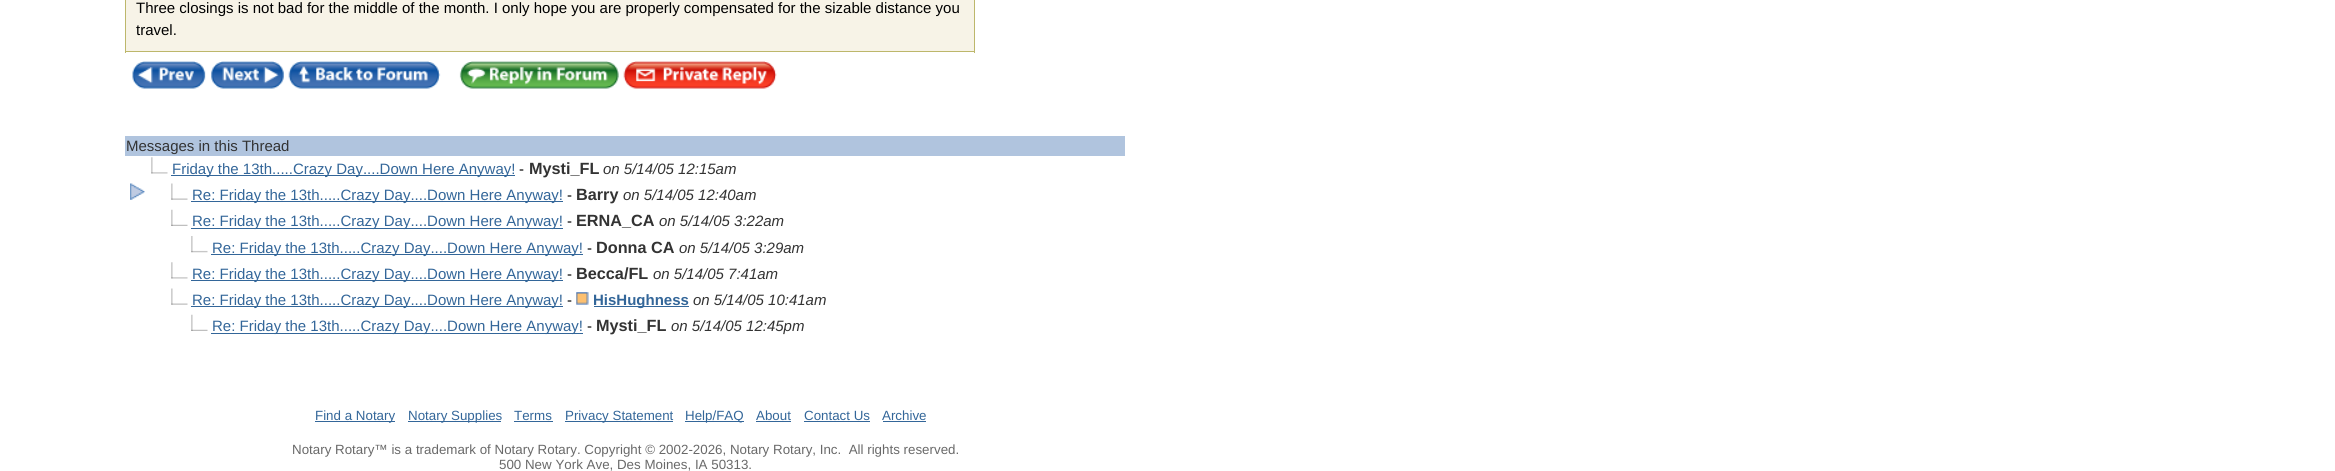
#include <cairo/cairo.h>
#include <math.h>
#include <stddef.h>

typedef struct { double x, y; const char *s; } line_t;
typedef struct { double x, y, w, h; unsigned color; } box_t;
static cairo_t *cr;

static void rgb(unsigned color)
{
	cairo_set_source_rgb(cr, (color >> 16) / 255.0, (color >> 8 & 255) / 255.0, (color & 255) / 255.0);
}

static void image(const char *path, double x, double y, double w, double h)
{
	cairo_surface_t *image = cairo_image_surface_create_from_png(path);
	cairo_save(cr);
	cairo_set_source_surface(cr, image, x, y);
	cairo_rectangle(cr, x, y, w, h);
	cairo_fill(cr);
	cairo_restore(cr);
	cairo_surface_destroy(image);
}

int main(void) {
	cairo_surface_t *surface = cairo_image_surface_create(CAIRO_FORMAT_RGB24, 2335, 471);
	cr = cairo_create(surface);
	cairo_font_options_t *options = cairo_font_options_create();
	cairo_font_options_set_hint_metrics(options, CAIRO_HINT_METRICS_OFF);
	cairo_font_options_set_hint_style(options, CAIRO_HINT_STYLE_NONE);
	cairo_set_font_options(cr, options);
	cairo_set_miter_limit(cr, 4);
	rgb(0xffffff);
	cairo_paint(cr);
	{
		static const box_t items[] = {
			{974, 0, 1, 53, 0xbdb76b},
			{125, 51, 850, 1, 0xbdb76b},
			{125, 0, 1, 53, 0xbdb76b},
			{126, 0, 848, 51, 0xf7f3e7},
		};
		for (size_t i = 0; i < sizeof items / sizeof *items; i++) {
			rgb(items[i].color);
			cairo_rectangle(cr, items[i].x, items[i].y, items[i].w, items[i].h);
			cairo_fill(cr);
		}
	}
	image("img/1.png", 132, 61, 74, 28);
	image("img/2.png", 211, 61, 73, 28);
	image("img/3.png", 288, 61, 153, 28);
	image("img/4.png", 459, 61, 160, 28);
	image("img/5.png", 623, 61, 154, 28);
	rgb(0xb0c4de);
	cairo_rectangle(cr, 125, 136, 1000, 20);
	cairo_fill(cr);
	image("img/6.png", 151, 157, 17, 17);
	rgb(0x336699);
	cairo_rectangle(cr, 171, 175, 344, 1);
	cairo_fill(cr);
	image("img/7.png", 130, 183, 15, 17);
	image("img/8.png", 171, 183, 17, 17);
	cairo_rectangle(cr, 191, 201, 372, 1);
	cairo_fill(cr);
	image("img/9.png", 171, 209, 17, 17);
	cairo_rectangle(cr, 191, 228, 372, 1);
	cairo_fill(cr);
	image("img/10.png", 191, 236, 17, 17);
	cairo_rectangle(cr, 211, 254, 372, 1);
	cairo_fill(cr);
	image("img/6.png", 171, 262, 17, 17);
	cairo_rectangle(cr, 191, 280, 372, 1);
	cairo_fill(cr);
	image("img/8.png", 171, 288, 17, 17);
	cairo_rectangle(cr, 191, 306, 372, 1);
	cairo_fill(cr);
	image("img/11.png", 576, 292, 13, 13);
	cairo_rectangle(cr, 594, 306, 95, 1);
	cairo_fill(cr);
	image("img/9.png", 191, 314, 17, 17);
	{
		static const box_t items[] = {
			{211, 333, 372, 1, 0x336699},
			{315, 421, 80, 1, 0x336699},
			{408, 421, 93, 1, 0x336699},
			{514, 421, 39, 1, 0x336699},
			{565, 421, 108, 1, 0x336699},
			{685, 421, 59, 1, 0x336699},
			{756, 421, 35, 1, 0x336699},
			{804, 421, 66, 1, 0x336699},
			{883, 421, 43, 1, 0x336699},
		};
		for (size_t i = 0; i < sizeof items / sizeof *items; i++) {
			rgb(items[i].color);
			cairo_rectangle(cr, items[i].x, items[i].y, items[i].w, items[i].h);
			cairo_fill(cr);
		}
	}
	cairo_select_font_face(cr, "Liberation Sans", CAIRO_FONT_SLANT_NORMAL, CAIRO_FONT_WEIGHT_NORMAL);
	cairo_set_font_size(cr, 15);
	rgb(0x000000);
	cairo_move_to(cr, 136, 13);
	cairo_show_text(cr, "Three closings is not bad for the middle of the month. I only hope you are properly compensated for the sizable distance you");
	cairo_move_to(cr, 136, 35);
	cairo_show_text(cr, "travel.");
	rgb(0x333333);
	cairo_move_to(cr, 126, 151);
	cairo_show_text(cr, "Messages in this Thread");
	rgb(0x336699);
	cairo_move_to(cr, 172, 174);
	cairo_show_text(cr, "Friday the 13th.....Crazy Day....Down Here Anyway!");
	rgb(0x000000);
	cairo_move_to(cr, 519, 174);
	cairo_show_text(cr, "-");
	cairo_select_font_face(cr, "Liberation Sans", CAIRO_FONT_SLANT_NORMAL, CAIRO_FONT_WEIGHT_BOLD);
	cairo_set_font_size(cr, 16.25);
	rgb(0x333333);
	cairo_move_to(cr, 529, 174);
	cairo_show_text(cr, "Mysti_FL");
	cairo_select_font_face(cr, "Liberation Sans", CAIRO_FONT_SLANT_ITALIC, CAIRO_FONT_WEIGHT_NORMAL);
	cairo_set_font_size(cr, 15);
	cairo_move_to(cr, 603, 174);
	cairo_show_text(cr, "on 5/14/05 12:15am");
	cairo_select_font_face(cr, "Liberation Sans", CAIRO_FONT_SLANT_NORMAL, CAIRO_FONT_WEIGHT_NORMAL);
	rgb(0x336699);
	cairo_move_to(cr, 192, 200);
	cairo_show_text(cr, "Re: Friday the 13th.....Crazy Day....Down Here Anyway!");
	rgb(0x000000);
	cairo_move_to(cr, 567, 200);
	cairo_show_text(cr, "-");
	cairo_select_font_face(cr, "Liberation Sans", CAIRO_FONT_SLANT_NORMAL, CAIRO_FONT_WEIGHT_BOLD);
	cairo_set_font_size(cr, 16.25);
	rgb(0x333333);
	cairo_move_to(cr, 576, 200);
	cairo_show_text(cr, "Barry");
	cairo_select_font_face(cr, "Liberation Sans", CAIRO_FONT_SLANT_ITALIC, CAIRO_FONT_WEIGHT_NORMAL);
	cairo_set_font_size(cr, 15);
	cairo_move_to(cr, 623, 200);
	cairo_show_text(cr, "on 5/14/05 12:40am");
	cairo_select_font_face(cr, "Liberation Sans", CAIRO_FONT_SLANT_NORMAL, CAIRO_FONT_WEIGHT_NORMAL);
	rgb(0x336699);
	cairo_move_to(cr, 192, 226);
	cairo_show_text(cr, "Re: Friday the 13th.....Crazy Day....Down Here Anyway!");
	rgb(0x000000);
	cairo_move_to(cr, 567, 226);
	cairo_show_text(cr, "-");
	cairo_select_font_face(cr, "Liberation Sans", CAIRO_FONT_SLANT_NORMAL, CAIRO_FONT_WEIGHT_BOLD);
	cairo_set_font_size(cr, 16.25);
	rgb(0x333333);
	cairo_move_to(cr, 576, 226);
	cairo_show_text(cr, "ERNA_CA");
	cairo_select_font_face(cr, "Liberation Sans", CAIRO_FONT_SLANT_ITALIC, CAIRO_FONT_WEIGHT_NORMAL);
	cairo_set_font_size(cr, 15);
	cairo_move_to(cr, 659, 226);
	cairo_show_text(cr, "on 5/14/05 3:22am");
	cairo_select_font_face(cr, "Liberation Sans", CAIRO_FONT_SLANT_NORMAL, CAIRO_FONT_WEIGHT_NORMAL);
	rgb(0x336699);
	cairo_move_to(cr, 212, 253);
	cairo_show_text(cr, "Re: Friday the 13th.....Crazy Day....Down Here Anyway!");
	rgb(0x000000);
	cairo_move_to(cr, 587, 253);
	cairo_show_text(cr, "-");
	cairo_select_font_face(cr, "Liberation Sans", CAIRO_FONT_SLANT_NORMAL, CAIRO_FONT_WEIGHT_BOLD);
	cairo_set_font_size(cr, 16.25);
	rgb(0x333333);
	cairo_move_to(cr, 596, 253);
	cairo_show_text(cr, "Donna CA");
	cairo_select_font_face(cr, "Liberation Sans", CAIRO_FONT_SLANT_ITALIC, CAIRO_FONT_WEIGHT_NORMAL);
	cairo_set_font_size(cr, 15);
	cairo_move_to(cr, 679, 253);
	cairo_show_text(cr, "on 5/14/05 3:29am");
	cairo_select_font_face(cr, "Liberation Sans", CAIRO_FONT_SLANT_NORMAL, CAIRO_FONT_WEIGHT_NORMAL);
	rgb(0x336699);
	cairo_move_to(cr, 192, 279);
	cairo_show_text(cr, "Re: Friday the 13th.....Crazy Day....Down Here Anyway!");
	rgb(0x000000);
	cairo_move_to(cr, 567, 279);
	cairo_show_text(cr, "-");
	cairo_select_font_face(cr, "Liberation Sans", CAIRO_FONT_SLANT_NORMAL, CAIRO_FONT_WEIGHT_BOLD);
	cairo_set_font_size(cr, 16.25);
	rgb(0x333333);
	cairo_move_to(cr, 576, 279);
	cairo_show_text(cr, "Becca/FL");
	cairo_select_font_face(cr, "Liberation Sans", CAIRO_FONT_SLANT_ITALIC, CAIRO_FONT_WEIGHT_NORMAL);
	cairo_set_font_size(cr, 15);
	cairo_move_to(cr, 653, 279);
	cairo_show_text(cr, "on 5/14/05 7:41am");
	cairo_select_font_face(cr, "Liberation Sans", CAIRO_FONT_SLANT_NORMAL, CAIRO_FONT_WEIGHT_NORMAL);
	rgb(0x336699);
	cairo_move_to(cr, 192, 305);
	cairo_show_text(cr, "Re: Friday the 13th.....Crazy Day....Down Here Anyway!");
	rgb(0x000000);
	cairo_move_to(cr, 567, 305);
	cairo_show_text(cr, "-");
	cairo_select_font_face(cr, "Liberation Sans", CAIRO_FONT_SLANT_NORMAL, CAIRO_FONT_WEIGHT_BOLD);
	rgb(0x336699);
	cairo_move_to(cr, 593, 305);
	cairo_show_text(cr, "HisHughness");
	cairo_select_font_face(cr, "Liberation Sans", CAIRO_FONT_SLANT_ITALIC, CAIRO_FONT_WEIGHT_NORMAL);
	rgb(0x333333);
	cairo_move_to(cr, 693, 305);
	cairo_show_text(cr, "on 5/14/05 10:41am");
	cairo_select_font_face(cr, "Liberation Sans", CAIRO_FONT_SLANT_NORMAL, CAIRO_FONT_WEIGHT_NORMAL);
	rgb(0x336699);
	cairo_move_to(cr, 212, 331);
	cairo_show_text(cr, "Re: Friday the 13th.....Crazy Day....Down Here Anyway!");
	rgb(0x000000);
	cairo_move_to(cr, 587, 331);
	cairo_show_text(cr, "-");
	cairo_select_font_face(cr, "Liberation Sans", CAIRO_FONT_SLANT_NORMAL, CAIRO_FONT_WEIGHT_BOLD);
	cairo_set_font_size(cr, 16.25);
	rgb(0x333333);
	cairo_move_to(cr, 596, 331);
	cairo_show_text(cr, "Mysti_FL");
	cairo_select_font_face(cr, "Liberation Sans", CAIRO_FONT_SLANT_ITALIC, CAIRO_FONT_WEIGHT_NORMAL);
	cairo_set_font_size(cr, 15);
	cairo_move_to(cr, 671, 331);
	cairo_show_text(cr, "on 5/14/05 12:45pm");
	cairo_select_font_face(cr, "Liberation Sans", CAIRO_FONT_SLANT_NORMAL, CAIRO_FONT_WEIGHT_NORMAL);
	cairo_set_font_size(cr, 13.35);
	rgb(0x336699);
	{
		static const line_t items[] = {
			{315, 420, "Find a Notary"},
			{408, 420, "Notary Supplies"},
			{514, 420, "Terms"},
			{565, 420, "Privacy Statement"},
			{685, 420, "Help/FAQ"},
			{756, 420, "About"},
			{804, 420, "Contact Us"},
			{882, 420, "Archive"},
		};
		for (size_t i = 0; i < sizeof items / sizeof *items; i++) {
			cairo_move_to(cr, items[i].x, items[i].y);
			cairo_show_text(cr, items[i].s);
		}
	}
	rgb(0x696969);
	cairo_move_to(cr, 292, 454);
	cairo_show_text(cr, "Notary Rotary™ is a trademark of Notary Rotary. Copyright © 2002-2026, Notary Rotary, Inc.  All rights reserved.");
	cairo_move_to(cr, 499, 469);
	cairo_show_text(cr, "500 New York Ave, Des Moines, IA 50313.");
	cairo_surface_write_to_png(surface, "page.png");
	cairo_font_options_destroy(options);
	cairo_destroy(cr);
	cairo_surface_destroy(surface);
	return 0;
}
